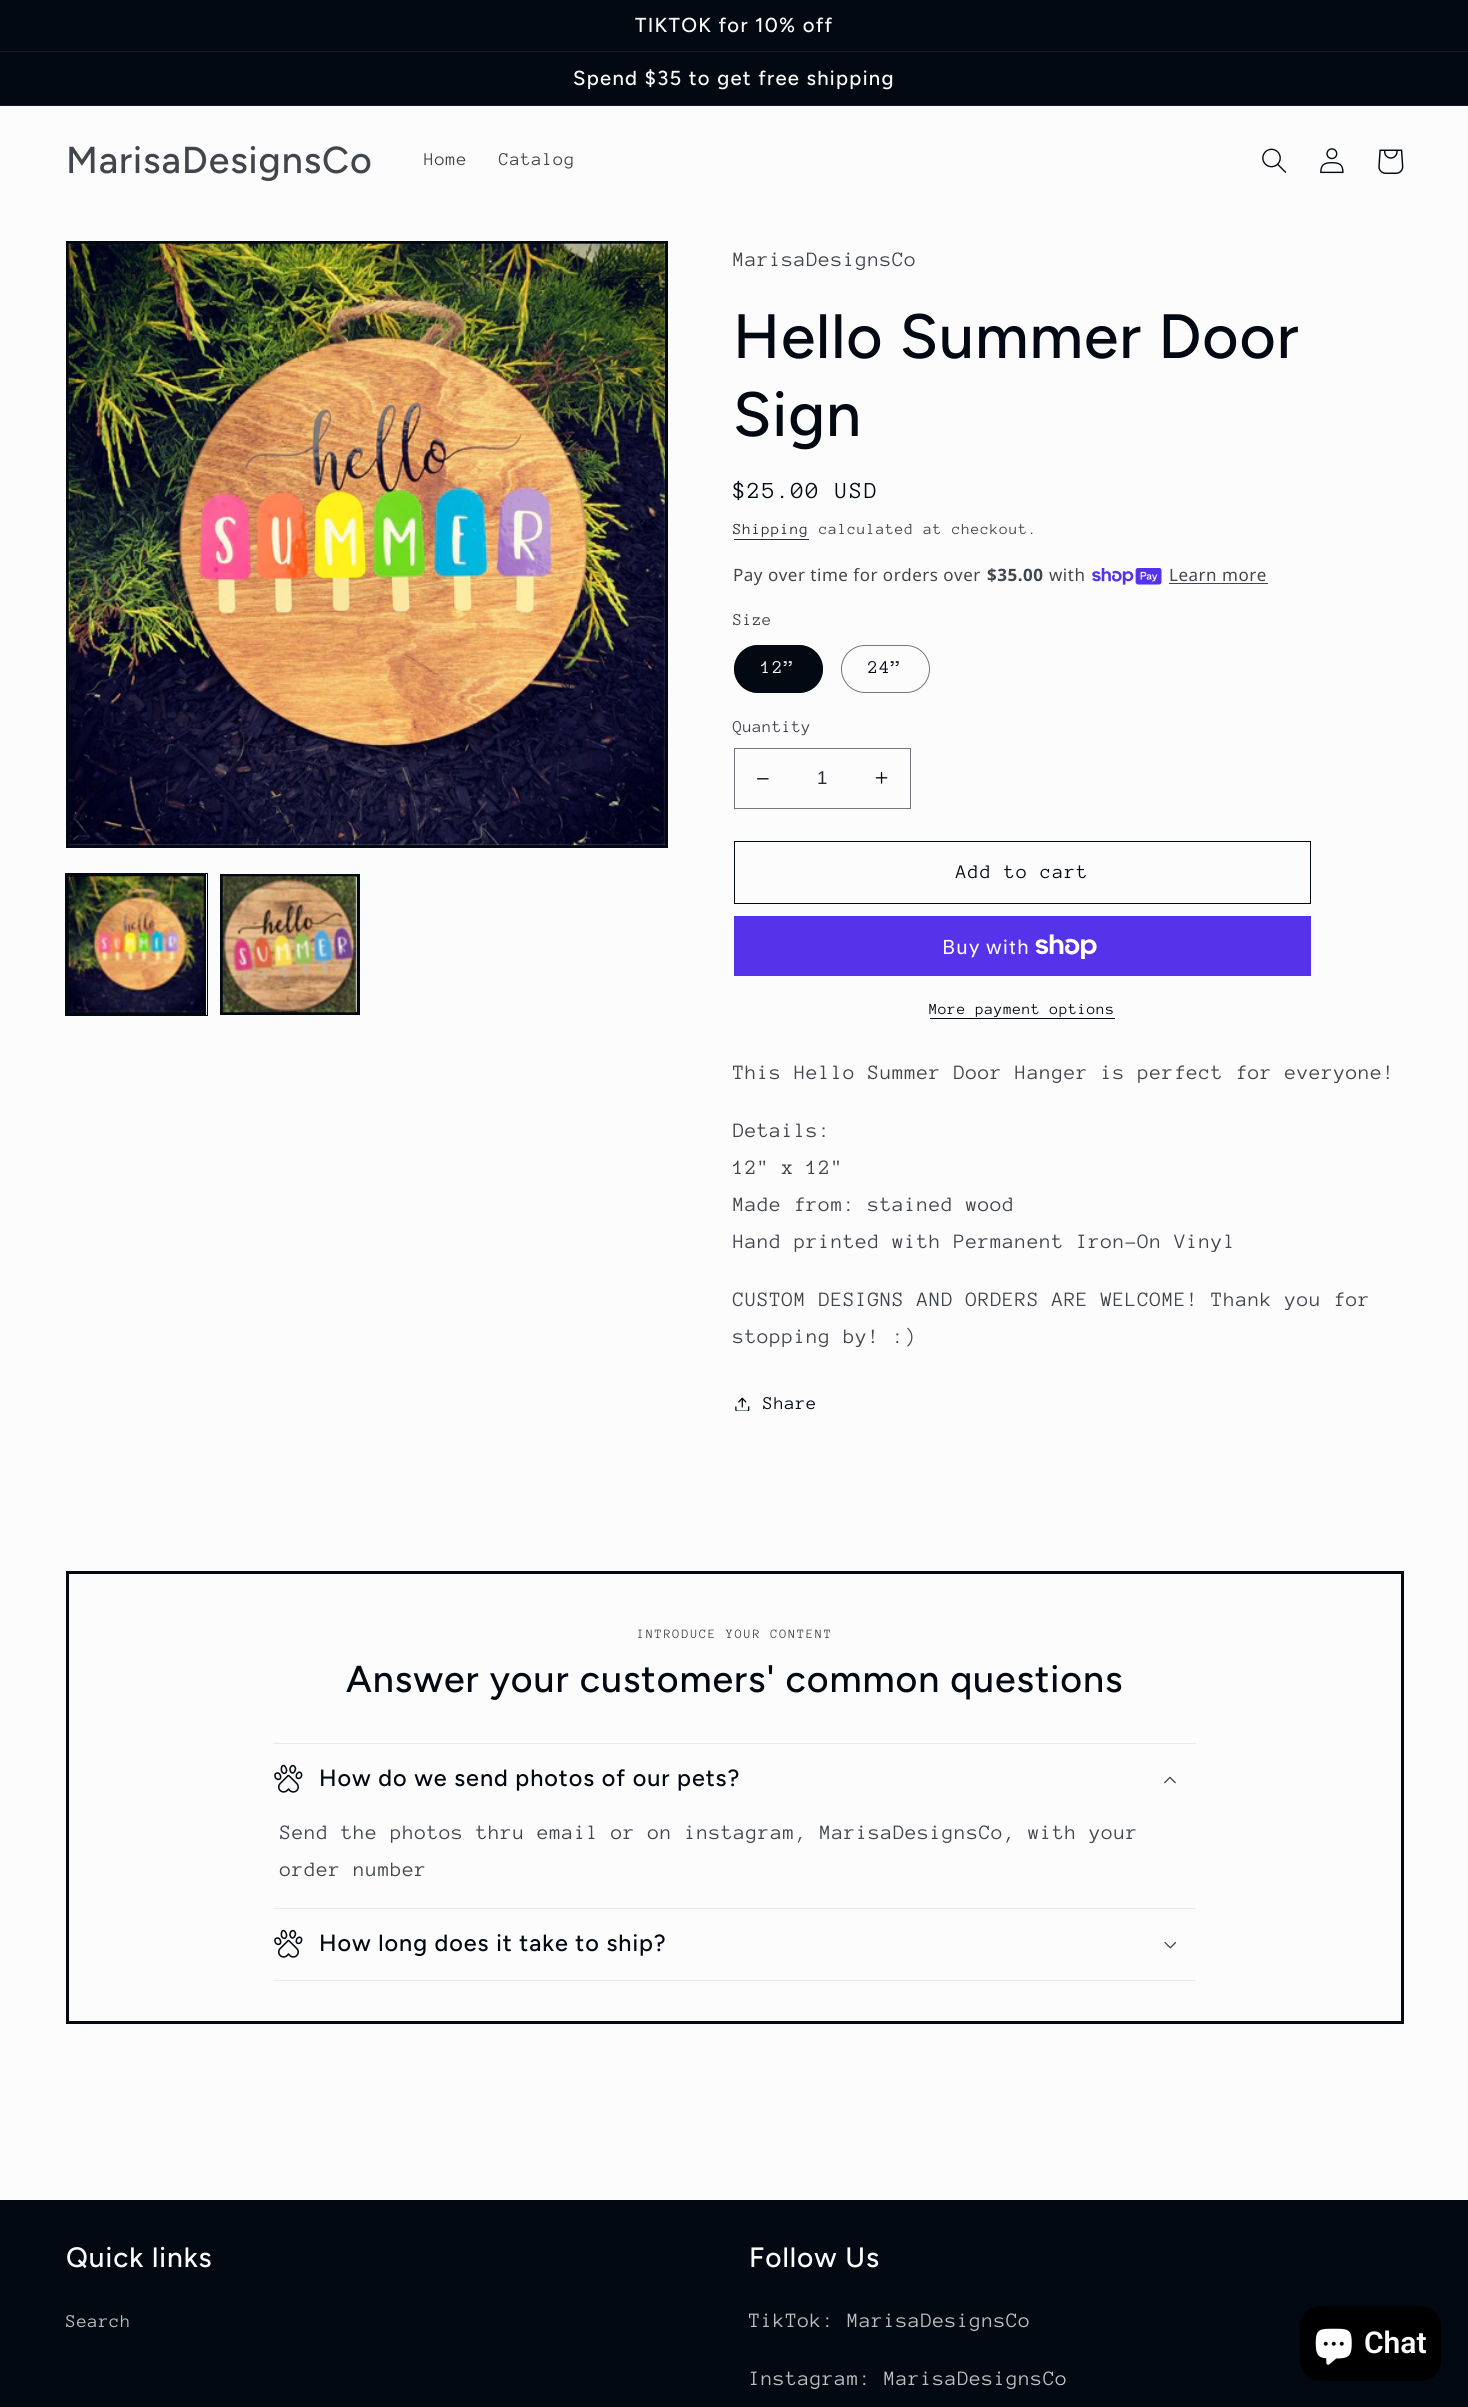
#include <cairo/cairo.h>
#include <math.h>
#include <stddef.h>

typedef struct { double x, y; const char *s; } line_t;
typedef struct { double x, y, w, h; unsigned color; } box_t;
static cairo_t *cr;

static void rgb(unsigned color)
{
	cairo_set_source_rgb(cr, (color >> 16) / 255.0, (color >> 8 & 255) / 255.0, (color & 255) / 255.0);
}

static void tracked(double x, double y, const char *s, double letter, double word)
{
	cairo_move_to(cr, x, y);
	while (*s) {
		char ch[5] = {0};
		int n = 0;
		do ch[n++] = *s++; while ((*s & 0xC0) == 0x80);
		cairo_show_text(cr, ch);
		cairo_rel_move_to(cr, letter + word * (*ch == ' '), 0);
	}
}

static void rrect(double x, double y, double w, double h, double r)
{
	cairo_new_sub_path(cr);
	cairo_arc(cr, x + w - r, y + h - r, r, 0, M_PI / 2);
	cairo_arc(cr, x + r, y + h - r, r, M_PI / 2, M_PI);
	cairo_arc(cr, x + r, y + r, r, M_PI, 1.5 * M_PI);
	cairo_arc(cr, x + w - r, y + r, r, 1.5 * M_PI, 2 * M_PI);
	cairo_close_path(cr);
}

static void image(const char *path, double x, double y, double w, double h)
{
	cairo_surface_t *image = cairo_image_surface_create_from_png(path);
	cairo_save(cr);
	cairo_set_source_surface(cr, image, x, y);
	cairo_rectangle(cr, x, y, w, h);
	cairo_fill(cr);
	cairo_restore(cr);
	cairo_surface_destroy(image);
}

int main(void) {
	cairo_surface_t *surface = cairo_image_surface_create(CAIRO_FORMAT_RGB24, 1468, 2407);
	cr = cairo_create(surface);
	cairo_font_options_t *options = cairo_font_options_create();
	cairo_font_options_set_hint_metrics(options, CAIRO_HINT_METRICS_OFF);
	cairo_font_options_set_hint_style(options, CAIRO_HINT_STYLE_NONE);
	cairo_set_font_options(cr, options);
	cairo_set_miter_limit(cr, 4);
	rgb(0xfcfcfc);
	cairo_paint(cr);
	{
		static const box_t items[] = {
			{0, 0, 1468, 105, 0x020912},
			{0, 51, 1468, 1, 0x161c25},
			{0, 105, 1468, 1, 0x161c25},
		};
		for (size_t i = 0; i < sizeof items / sizeof *items; i++) {
			rgb(items[i].color);
			cairo_rectangle(cr, items[i].x, items[i].y, items[i].w, items[i].h);
			cairo_fill(cr);
		}
	}
	image("img/1.png", 1262, 148, 25, 25);
	image("img/2.png", 1320, 148, 24, 26);
	image("img/3.png", 1378, 149, 26, 25);
	cairo_rectangle(cr, 67.5, 242.5, 599, 604);
	rgb(0x020912);
	cairo_set_line_width(cr, 3);
	cairo_stroke(cr);
	image("img/4.png", 68, 243, 597, 603);
	cairo_rectangle(cr, 65.5, 873.5, 142, 142);
	cairo_set_line_width(cr, 1);
	cairo_stroke(cr);
	cairo_rectangle(cr, 67.5, 875.5, 137, 138);
	cairo_set_line_width(cr, 3);
	cairo_stroke(cr);
	image("img/5.png", 68, 876, 136, 137);
	cairo_rectangle(cr, 221.5, 875.5, 137, 138);
	cairo_stroke(cr);
	image("img/6.png", 222, 876, 135, 137);
	rgb(0x282d35);
	cairo_rectangle(cr, 734, 539, 75, 1);
	cairo_fill(cr);
	image("img/7.png", 1092, 568, 70, 17);
	rgb(0x41464d);
	cairo_rectangle(cr, 1169, 583, 99, 1);
	cairo_fill(cr);
	rgb(0x020912);
	rrect(734, 645, 89, 48, 24);
	cairo_fill(cr);
	rrect(734.5, 645.5, 88, 47, 23.5);
	cairo_set_source_rgba(cr, 0.008, 0.035, 0.071, 0.55);
	cairo_set_line_width(cr, 1);
	cairo_stroke(cr);
	rrect(841.5, 645.5, 88, 47, 23.5);
	rgb(0x72767b);
	cairo_stroke(cr);
	image("img/8.png", 757, 778, 12, 2);
	image("img/9.png", 875, 771, 13, 13);
	cairo_rectangle(cr, 734.5, 748.5, 176, 60);
	cairo_stroke(cr);
	cairo_rectangle(cr, 734.5, 841.5, 576, 62);
	rgb(0x020912);
	cairo_stroke(cr);
	rgb(0x5433eb);
	cairo_rectangle(cr, 734, 916, 577, 60);
	cairo_fill(cr);
	image("img/10.png", 1035, 934, 62, 25);
	rgb(0x020912);
	cairo_rectangle(cr, 930, 1018, 185, 1);
	cairo_fill(cr);
	image("img/11.png", 735, 1397, 15, 14);
	cairo_rectangle(cr, 67.5, 1572.5, 1335, 450);
	cairo_set_line_width(cr, 3);
	cairo_stroke(cr);
	rgb(0xe8e9e9);
	cairo_rectangle(cr, 273, 1743, 923, 1);
	cairo_fill(cr);
	cairo_rectangle(cr, 273, 1908, 923, 1);
	cairo_fill(cr);
	image("img/12.png", 274, 1764, 29, 29);
	image("img/13.png", 1164, 1776, 12, 8);
	cairo_rectangle(cr, 273, 1980, 923, 1);
	cairo_fill(cr);
	image("img/12.png", 274, 1929, 29, 29);
	image("img/14.png", 1164, 1942, 12, 7);
	rgb(0x020912);
	cairo_rectangle(cr, 0, 2200, 1468, 207);
	cairo_fill(cr);
	rgb(0x000000);
	rrect(1300, 2306, 141, 75, 20);
	cairo_fill(cr);
	image("img/15.png", 1315, 2328, 37, 37);
	cairo_select_font_face(cr, "Figtree Medium", CAIRO_FONT_SLANT_NORMAL, CAIRO_FONT_WEIGHT_NORMAL);
	cairo_set_font_size(cr, 20.25);
	rgb(0xfcfcfc);
	tracked(635, 32, "TIKTOK for 10% off", 1.3, 0);
	tracked(573, 85, "Spend $35 to get free shipping", 1.3, 0);
	cairo_set_font_size(cr, 37.5);
	rgb(0x41464d);
	tracked(66, 173, "MarisaDesignsCo", 0.95, 0);
	cairo_select_font_face(cr, "Anonymous Pro", CAIRO_FONT_SLANT_NORMAL, CAIRO_FONT_WEIGHT_NORMAL);
	cairo_set_font_size(cr, 18.5);
	tracked(424, 165, "Home", 0.8, 0);
	tracked(499, 165, "Catalog", 0.8, 0);
	cairo_set_font_size(cr, 21);
	tracked(733, 266, "MarisaDesignsCo", 0.8, 0);
	cairo_select_font_face(cr, "Figtree Medium", CAIRO_FONT_SLANT_NORMAL, CAIRO_FONT_WEIGHT_NORMAL);
	cairo_set_font_size(cr, 62.5);
	rgb(0x020912);
	tracked(733, 358, "Hello Summer Door", 0.95, 0);
	tracked(733, 436, "Sign", 0.95, 0);
	cairo_select_font_face(cr, "Anonymous Pro", CAIRO_FONT_SLANT_NORMAL, CAIRO_FONT_WEIGHT_NORMAL);
	cairo_set_font_size(cr, 23.5);
	tracked(733, 498, "$25.00 USD", 1.75, 0);
	cairo_set_font_size(cr, 15.75);
	rgb(0x282d35);
	tracked(733, 534, "Shipping", 0.9, 0);
	rgb(0x41464d);
	tracked(819, 534, "calculated at checkout.", 0.9, 0);
	cairo_select_font_face(cr, "Noto Sans", CAIRO_FONT_SLANT_NORMAL, CAIRO_FONT_WEIGHT_NORMAL);
	cairo_set_font_size(cr, 17);
	tracked(733, 581, "Pay over time for orders over", 0.5, 0);
	cairo_select_font_face(cr, "Noto Sans", CAIRO_FONT_SLANT_NORMAL, CAIRO_FONT_WEIGHT_BOLD);
	tracked(987, 581, "$35.00", 0.5, 0);
	cairo_select_font_face(cr, "Noto Sans", CAIRO_FONT_SLANT_NORMAL, CAIRO_FONT_WEIGHT_NORMAL);
	tracked(1049, 581, "with", 0.5, 0);
	tracked(1169, 581, "Learn more", 0.5, 0);
	cairo_select_font_face(cr, "Anonymous Pro", CAIRO_FONT_SLANT_NORMAL, CAIRO_FONT_WEIGHT_NORMAL);
	tracked(733, 625, "Size", 0.5, 0);
	cairo_set_font_size(cr, 18.5);
	rgb(0xfcfcfc);
	tracked(761, 673, "12”", 1.3, 0);
	rgb(0x020912);
	tracked(868, 673, "24”", 1.3, 0);
	cairo_set_font_size(cr, 17);
	rgb(0x41464d);
	tracked(733, 732, "Quantity", 0.5, 0);
	cairo_select_font_face(cr, "Liberation Sans", CAIRO_FONT_SLANT_NORMAL, CAIRO_FONT_WEIGHT_NORMAL);
	cairo_set_font_size(cr, 18.5);
	rgb(0x282d35);
	cairo_move_to(cr, 817, 784);
	cairo_show_text(cr, "1");
	cairo_select_font_face(cr, "Anonymous Pro", CAIRO_FONT_SLANT_NORMAL, CAIRO_FONT_WEIGHT_NORMAL);
	cairo_set_font_size(cr, 19.75);
	rgb(0x020912);
	tracked(956, 878, "Add to cart", 1.3, 0);
	cairo_select_font_face(cr, "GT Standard", CAIRO_FONT_SLANT_NORMAL, CAIRO_FONT_WEIGHT_NORMAL);
	cairo_set_font_size(cr, 20);
	rgb(0xfcfcfc);
	tracked(942, 954, "Buy with", 0.8, 0);
	cairo_select_font_face(cr, "Anonymous Pro", CAIRO_FONT_SLANT_NORMAL, CAIRO_FONT_WEIGHT_NORMAL);
	cairo_set_font_size(cr, 15.75);
	rgb(0x020912);
	tracked(929, 1014, "More payment options", 0.7, 0);
	cairo_set_font_size(cr, 21);
	rgb(0x41464d);
	{
		static const line_t items[] = {
			{733, 1079, "This Hello Summer Door Hanger is perfect for everyone!"},
			{733, 1137, "Details:"},
			{733, 1174, "12\" x 12\""},
			{733, 1211, "Made from: stained wood"},
			{733, 1248, "Hand printed with Permanent Iron-On Vinyl"},
			{733, 1306, "CUSTOM DESIGNS AND ORDERS ARE WELCOME! Thank you for"},
			{733, 1343, "stopping by! :)"},
		};
		for (size_t i = 0; i < sizeof items / sizeof *items; i++) {
			tracked(items[i].x, items[i].y, items[i].s, 0.8, 0);
		}
	}
	cairo_set_font_size(cr, 18.5);
	rgb(0x020912);
	tracked(763, 1409, "Share", 0.8, 0);
	cairo_set_font_size(cr, 13.1);
	rgb(0x41464d);
	tracked(637, 1638, "INTRODUCE YOUR CONTENT", 1.75, 0);
	cairo_select_font_face(cr, "Figtree Medium", CAIRO_FONT_SLANT_NORMAL, CAIRO_FONT_WEIGHT_NORMAL);
	cairo_set_font_size(cr, 37.5);
	rgb(0x020912);
	tracked(346, 1692, "Answer your customers' common questions", 0.95, 0);
	cairo_set_font_size(cr, 23.4);
	tracked(319, 1786, "How do we send photos of our pets?", 0.95, 0);
	cairo_select_font_face(cr, "Anonymous Pro", CAIRO_FONT_SLANT_NORMAL, CAIRO_FONT_WEIGHT_NORMAL);
	cairo_set_font_size(cr, 21);
	rgb(0x41464d);
	tracked(280, 1839, "Send the photos thru email or on instagram, MarisaDesignsCo, with your", 0.8, 0);
	tracked(280, 1876, "order number", 0.8, 0);
	cairo_select_font_face(cr, "Figtree Medium", CAIRO_FONT_SLANT_NORMAL, CAIRO_FONT_WEIGHT_NORMAL);
	cairo_set_font_size(cr, 23.4);
	rgb(0x020912);
	tracked(319, 1951, "How long does it take to ship?", 0.95, 0);
	cairo_set_font_size(cr, 28);
	rgb(0xfcfcfc);
	tracked(66, 2267, "Quick links", 0.95, 0);
	cairo_select_font_face(cr, "Anonymous Pro", CAIRO_FONT_SLANT_NORMAL, CAIRO_FONT_WEIGHT_NORMAL);
	cairo_set_font_size(cr, 18.5);
	rgb(0xbebfc2);
	tracked(66, 2327, "Search", 0.8, 0);
	cairo_select_font_face(cr, "Figtree Medium", CAIRO_FONT_SLANT_NORMAL, CAIRO_FONT_WEIGHT_NORMAL);
	cairo_set_font_size(cr, 28);
	rgb(0xfcfcfc);
	tracked(749, 2267, "Follow Us", 0.95, 0);
	cairo_select_font_face(cr, "Anonymous Pro", CAIRO_FONT_SLANT_NORMAL, CAIRO_FONT_WEIGHT_NORMAL);
	cairo_set_font_size(cr, 21);
	rgb(0xbebfc2);
	tracked(749, 2327, "TikTok: MarisaDesignsCo", 0.8, 0);
	tracked(749, 2385, "Instagram: MarisaDesignsCo", 0.8, 0);
	cairo_select_font_face(cr, "Roboto SemiBold", CAIRO_FONT_SLANT_NORMAL, CAIRO_FONT_WEIGHT_NORMAL);
	cairo_set_font_size(cr, 30);
	rgb(0xfcfcfc);
	cairo_move_to(cr, 1364, 2353);
	cairo_show_text(cr, "Chat");
	cairo_surface_write_to_png(surface, "page.png");
	cairo_font_options_destroy(options);
	cairo_destroy(cr);
	cairo_surface_destroy(surface);
	return 0;
}
